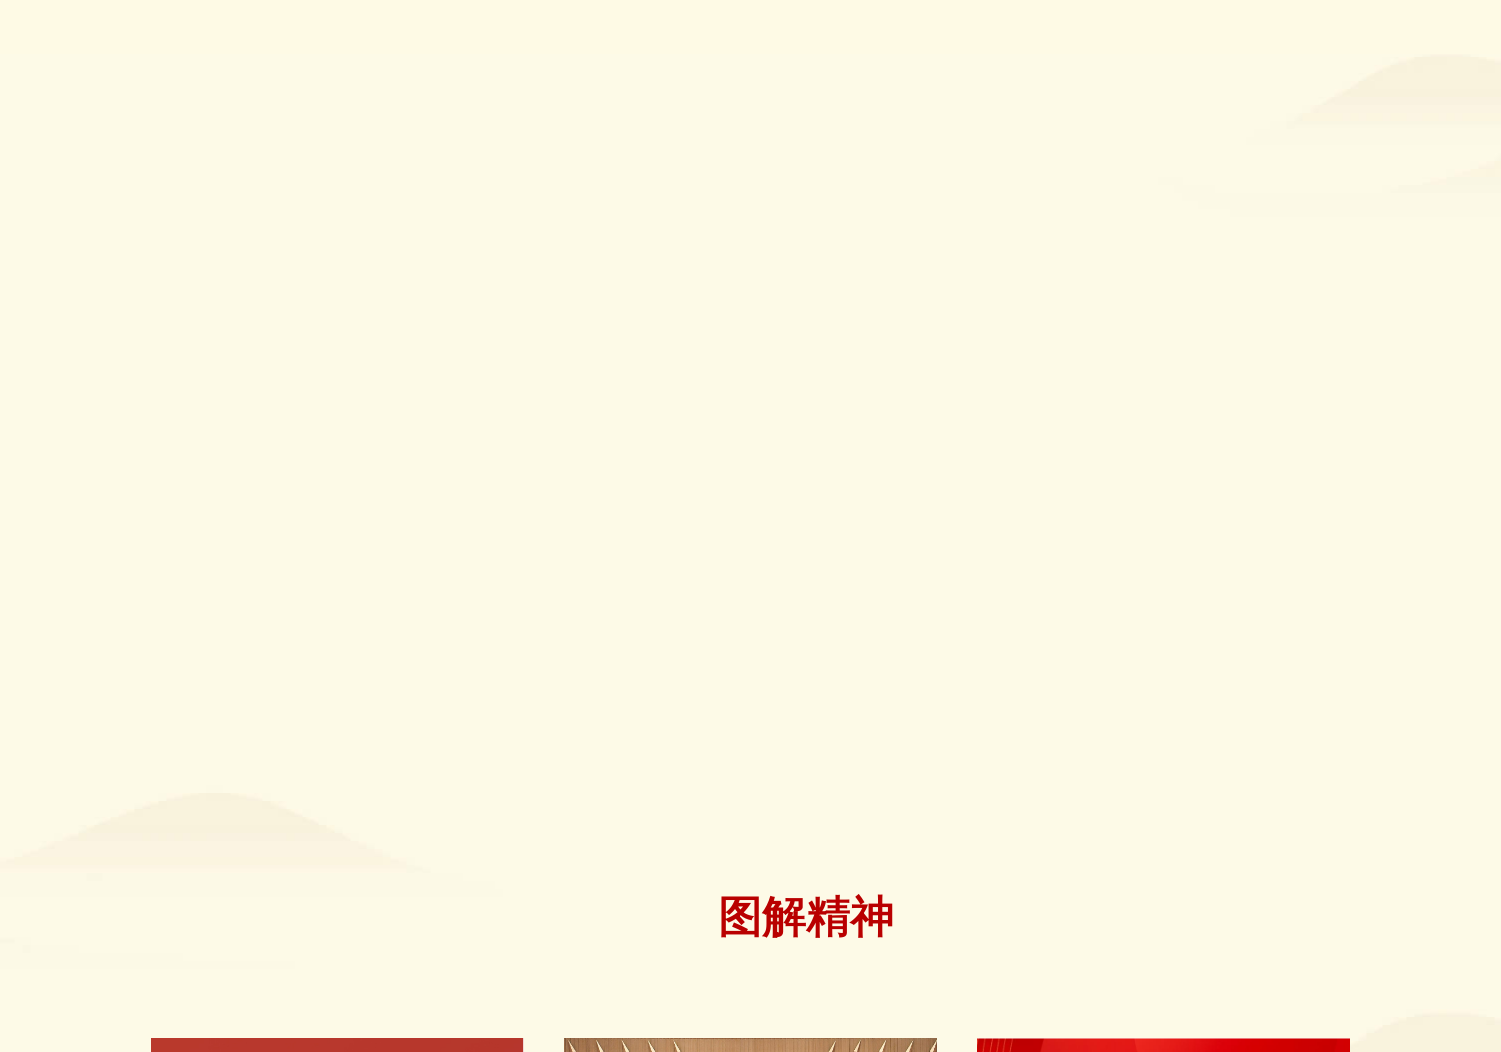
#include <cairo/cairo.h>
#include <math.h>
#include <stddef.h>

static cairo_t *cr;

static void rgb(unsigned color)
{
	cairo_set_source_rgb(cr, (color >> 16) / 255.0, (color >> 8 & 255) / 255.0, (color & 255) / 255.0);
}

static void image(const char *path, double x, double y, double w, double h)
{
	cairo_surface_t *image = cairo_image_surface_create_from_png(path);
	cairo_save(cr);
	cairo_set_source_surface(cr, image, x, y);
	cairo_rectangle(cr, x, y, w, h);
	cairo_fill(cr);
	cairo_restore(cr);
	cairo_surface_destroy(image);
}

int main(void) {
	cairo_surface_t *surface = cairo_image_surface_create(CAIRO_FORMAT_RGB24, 1501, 1052);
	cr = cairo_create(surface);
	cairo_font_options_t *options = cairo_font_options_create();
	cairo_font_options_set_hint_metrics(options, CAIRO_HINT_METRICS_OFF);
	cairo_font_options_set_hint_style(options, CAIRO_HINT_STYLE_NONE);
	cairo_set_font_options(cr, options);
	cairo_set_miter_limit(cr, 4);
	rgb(0xfefae5);
	cairo_paint(cr);
	image("img/1.png", 0, 54, 1501, 998);
	image("img/2.png", 151, 1038, 373, 14);
	image("img/3.png", 564, 1038, 373, 14);
	image("img/4.png", 977, 1038, 373, 14);
	cairo_select_font_face(cr, "WenQuanYi Zen Hei", CAIRO_FONT_SLANT_NORMAL, CAIRO_FONT_WEIGHT_BOLD);
	cairo_set_font_size(cr, 44);
	rgb(0xb90000);
	cairo_move_to(cr, 718, 932);
	cairo_show_text(cr, "图解精神");
	cairo_surface_write_to_png(surface, "page.png");
	cairo_font_options_destroy(options);
	cairo_destroy(cr);
	cairo_surface_destroy(surface);
	return 0;
}
